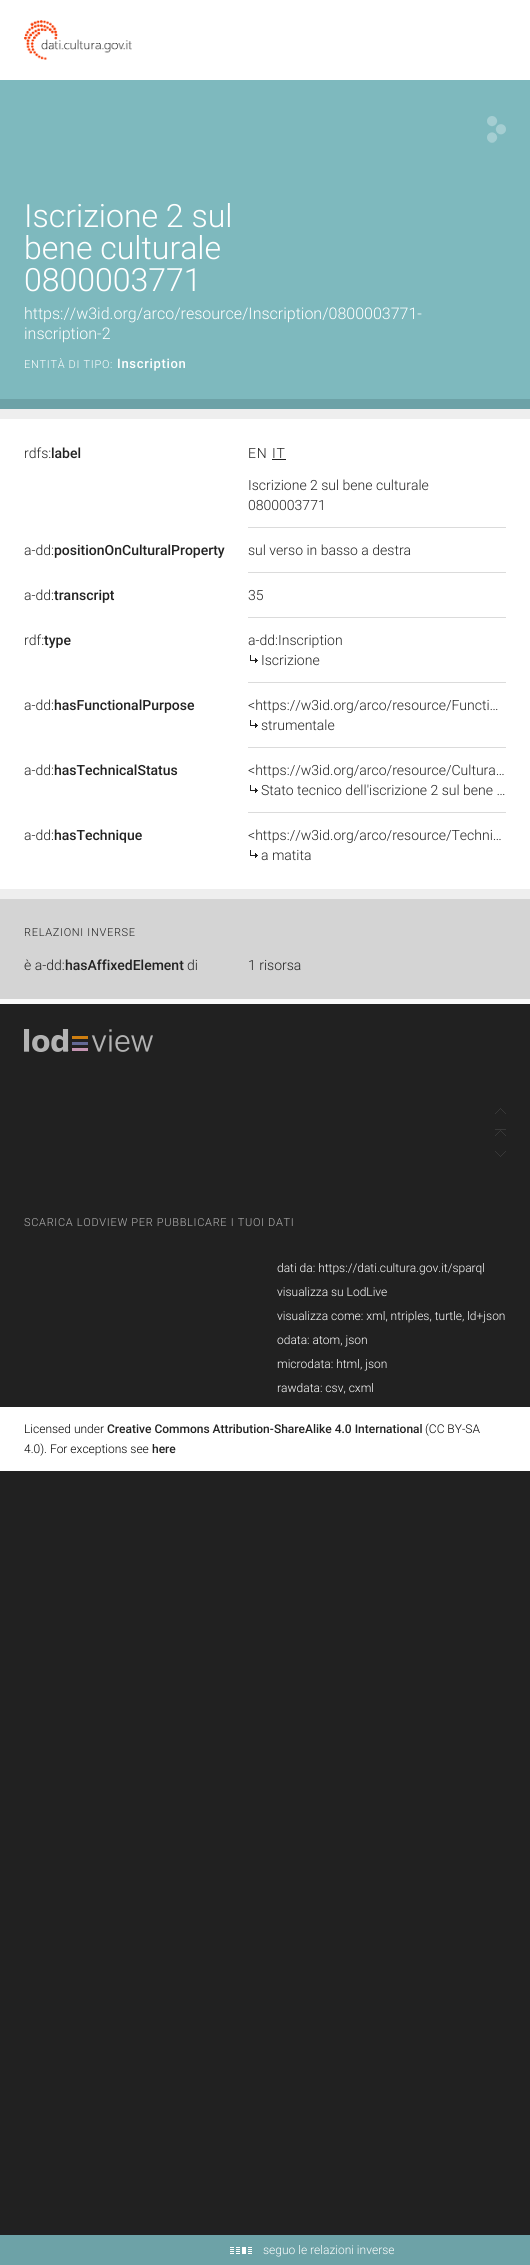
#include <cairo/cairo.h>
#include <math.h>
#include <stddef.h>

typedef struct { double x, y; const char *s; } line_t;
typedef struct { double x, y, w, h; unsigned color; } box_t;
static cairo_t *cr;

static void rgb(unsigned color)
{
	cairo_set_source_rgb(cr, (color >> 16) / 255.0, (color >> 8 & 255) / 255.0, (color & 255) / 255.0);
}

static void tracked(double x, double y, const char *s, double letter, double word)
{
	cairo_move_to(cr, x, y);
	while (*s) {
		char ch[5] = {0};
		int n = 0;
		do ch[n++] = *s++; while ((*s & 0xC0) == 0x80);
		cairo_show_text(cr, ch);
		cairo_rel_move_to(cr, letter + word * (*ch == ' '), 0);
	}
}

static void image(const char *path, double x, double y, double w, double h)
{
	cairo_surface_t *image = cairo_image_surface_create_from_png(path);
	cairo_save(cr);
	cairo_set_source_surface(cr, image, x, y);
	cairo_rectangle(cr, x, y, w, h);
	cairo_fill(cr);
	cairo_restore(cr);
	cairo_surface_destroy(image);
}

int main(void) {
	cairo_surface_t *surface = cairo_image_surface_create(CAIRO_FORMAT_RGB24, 530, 2265);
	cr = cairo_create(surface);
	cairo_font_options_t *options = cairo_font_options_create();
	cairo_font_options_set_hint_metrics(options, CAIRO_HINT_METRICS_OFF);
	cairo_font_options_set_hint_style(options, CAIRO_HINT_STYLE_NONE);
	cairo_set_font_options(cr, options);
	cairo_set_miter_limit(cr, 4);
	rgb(0x212121);
	cairo_paint(cr);
	rgb(0xffffff);
	cairo_rectangle(cr, 0, 0, 530, 80);
	cairo_fill(cr);
	image("img/1.png", 24, 20, 108, 40);
	rgb(0x7eb9be);
	cairo_rectangle(cr, 0, 80, 530, 319);
	cairo_fill(cr);
	image("img/2.png", 487, 116, 19, 27);
	{
		static const box_t items[] = {
			{0, 399, 530, 10, 0x6da2a7},
			{0, 409, 530, 10, 0xeeeeee},
			{0, 419, 530, 470, 0xffffff},
			{248, 527, 258, 1, 0xdbdbdb},
			{272, 459, 14, 1, 0x212121},
			{248, 572, 258, 1, 0xdbdbdb},
			{248, 617, 258, 1, 0xdbdbdb},
			{248, 682, 258, 1, 0xdbdbdb},
		};
		for (size_t i = 0; i < sizeof items / sizeof *items; i++) {
			rgb(items[i].color);
			cairo_rectangle(cr, items[i].x, items[i].y, items[i].w, items[i].h);
			cairo_fill(cr);
		}
	}
	image("img/3.png", 250, 655, 8, 8);
	cairo_rectangle(cr, 248, 747, 258, 1);
	cairo_fill(cr);
	image("img/3.png", 250, 720, 8, 8);
	cairo_rectangle(cr, 248, 812, 258, 1);
	cairo_fill(cr);
	image("img/3.png", 250, 785, 8, 8);
	image("img/3.png", 250, 850, 8, 8);
	{
		static const box_t items[] = {
			{0, 889, 530, 10, 0xeeeeee},
			{0, 899, 530, 100, 0xd4d4d4},
			{0, 999, 530, 5, 0xfafafa},
		};
		for (size_t i = 0; i < sizeof items / sizeof *items; i++) {
			rgb(items[i].color);
			cairo_rectangle(cr, items[i].x, items[i].y, items[i].w, items[i].h);
			cairo_fill(cr);
		}
	}
	image("img/4.png", 495, 1108, 11, 6);
	image("img/5.png", 495, 1129, 11, 7);
	image("img/6.png", 495, 1151, 11, 6);
	image("img/7.png", 24, 1029, 129, 23);
	rgb(0xffffff);
	cairo_rectangle(cr, 0, 1407, 530, 64);
	cairo_fill(cr);
	rgb(0x6da2a7);
	cairo_rectangle(cr, 0, 2235, 530, 30);
	cairo_fill(cr);
	image("img/8.png", 230, 2247, 22, 7);
	cairo_select_font_face(cr, "Roboto Light", CAIRO_FONT_SLANT_NORMAL, CAIRO_FONT_WEIGHT_NORMAL);
	cairo_set_font_size(cr, 32);
	rgb(0xffffff);
	{
		static const line_t items[] = {
			{24, 227, "Iscrizione 2 sul"},
			{24, 259, "bene culturale"},
			{24, 291, "0800003771"},
		};
		for (size_t i = 0; i < sizeof items / sizeof *items; i++) {
			cairo_move_to(cr, items[i].x, items[i].y);
			cairo_show_text(cr, items[i].s);
		}
	}
	cairo_set_font_size(cr, 16);
	cairo_move_to(cr, 24, 319);
	cairo_show_text(cr, "https://w3id.org/arco/resource/Inscription/0800003771-");
	cairo_move_to(cr, 24, 339);
	cairo_show_text(cr, "inscription-2");
	cairo_set_font_size(cr, 11);
	tracked(24, 368, "ENTITÀ DI TIPO:", 0.7, 0);
	cairo_select_font_face(cr, "Roboto Medium", CAIRO_FONT_SLANT_NORMAL, CAIRO_FONT_WEIGHT_NORMAL);
	cairo_set_font_size(cr, 13);
	tracked(117, 368, "Inscription", 0.7, 0);
	cairo_select_font_face(cr, "Roboto Light", CAIRO_FONT_SLANT_NORMAL, CAIRO_FONT_WEIGHT_NORMAL);
	cairo_set_font_size(cr, 14);
	rgb(0x222222);
	cairo_move_to(cr, 24, 458);
	cairo_show_text(cr, "rdfs:");
	cairo_select_font_face(cr, "Roboto Medium", CAIRO_FONT_SLANT_NORMAL, CAIRO_FONT_WEIGHT_NORMAL);
	cairo_move_to(cr, 51, 458);
	cairo_show_text(cr, "label");
	cairo_select_font_face(cr, "Roboto Light", CAIRO_FONT_SLANT_NORMAL, CAIRO_FONT_WEIGHT_NORMAL);
	tracked(248, 458, "EN", 0.7, 0);
	tracked(272, 458, "IT", 0.7, 0);
	{
		static const line_t items[] = {
			{248, 490, "Iscrizione 2 sul bene culturale"},
			{248, 510, "0800003771"},
			{24, 555, "a-dd:"},
		};
		for (size_t i = 0; i < sizeof items / sizeof *items; i++) {
			cairo_move_to(cr, items[i].x, items[i].y);
			cairo_show_text(cr, items[i].s);
		}
	}
	cairo_select_font_face(cr, "Roboto Medium", CAIRO_FONT_SLANT_NORMAL, CAIRO_FONT_WEIGHT_NORMAL);
	cairo_move_to(cr, 54, 555);
	cairo_show_text(cr, "positionOnCulturalProperty");
	cairo_select_font_face(cr, "Roboto Light", CAIRO_FONT_SLANT_NORMAL, CAIRO_FONT_WEIGHT_NORMAL);
	cairo_move_to(cr, 248, 555);
	cairo_show_text(cr, "sul verso in basso a destra");
	cairo_move_to(cr, 24, 600);
	cairo_show_text(cr, "a-dd:");
	cairo_select_font_face(cr, "Roboto Medium", CAIRO_FONT_SLANT_NORMAL, CAIRO_FONT_WEIGHT_NORMAL);
	cairo_move_to(cr, 54, 600);
	cairo_show_text(cr, "transcript");
	cairo_select_font_face(cr, "Roboto Light", CAIRO_FONT_SLANT_NORMAL, CAIRO_FONT_WEIGHT_NORMAL);
	cairo_move_to(cr, 248, 600);
	cairo_show_text(cr, "35");
	cairo_move_to(cr, 24, 645);
	cairo_show_text(cr, "rdf:");
	cairo_select_font_face(cr, "Roboto Medium", CAIRO_FONT_SLANT_NORMAL, CAIRO_FONT_WEIGHT_NORMAL);
	cairo_move_to(cr, 44, 645);
	cairo_show_text(cr, "type");
	cairo_select_font_face(cr, "Roboto Light", CAIRO_FONT_SLANT_NORMAL, CAIRO_FONT_WEIGHT_NORMAL);
	{
		static const line_t items[] = {
			{248, 645, "a-dd:Inscription"},
			{261, 665, "Iscrizione"},
			{24, 710, "a-dd:"},
		};
		for (size_t i = 0; i < sizeof items / sizeof *items; i++) {
			cairo_move_to(cr, items[i].x, items[i].y);
			cairo_show_text(cr, items[i].s);
		}
	}
	cairo_select_font_face(cr, "Roboto Medium", CAIRO_FONT_SLANT_NORMAL, CAIRO_FONT_WEIGHT_NORMAL);
	cairo_move_to(cr, 54, 710);
	cairo_show_text(cr, "hasFunctionalPurpose");
	cairo_select_font_face(cr, "Roboto Light", CAIRO_FONT_SLANT_NORMAL, CAIRO_FONT_WEIGHT_NORMAL);
	{
		static const line_t items[] = {
			{248, 710, "<https://w3id.org/arco/resource/Functi…"},
			{261, 730, "strumentale"},
			{24, 775, "a-dd:"},
		};
		for (size_t i = 0; i < sizeof items / sizeof *items; i++) {
			cairo_move_to(cr, items[i].x, items[i].y);
			cairo_show_text(cr, items[i].s);
		}
	}
	cairo_select_font_face(cr, "Roboto Medium", CAIRO_FONT_SLANT_NORMAL, CAIRO_FONT_WEIGHT_NORMAL);
	cairo_move_to(cr, 54, 775);
	cairo_show_text(cr, "hasTechnicalStatus");
	cairo_select_font_face(cr, "Roboto Light", CAIRO_FONT_SLANT_NORMAL, CAIRO_FONT_WEIGHT_NORMAL);
	{
		static const line_t items[] = {
			{248, 775, "<https://w3id.org/arco/resource/Cultura…"},
			{261, 795, "Stato tecnico dell'iscrizione 2 sul bene …"},
			{24, 840, "a-dd:"},
		};
		for (size_t i = 0; i < sizeof items / sizeof *items; i++) {
			cairo_move_to(cr, items[i].x, items[i].y);
			cairo_show_text(cr, items[i].s);
		}
	}
	cairo_select_font_face(cr, "Roboto Medium", CAIRO_FONT_SLANT_NORMAL, CAIRO_FONT_WEIGHT_NORMAL);
	cairo_move_to(cr, 54, 840);
	cairo_show_text(cr, "hasTechnique");
	cairo_select_font_face(cr, "Roboto Light", CAIRO_FONT_SLANT_NORMAL, CAIRO_FONT_WEIGHT_NORMAL);
	cairo_move_to(cr, 248, 840);
	cairo_show_text(cr, "<https://w3id.org/arco/resource/Techni…");
	cairo_move_to(cr, 261, 860);
	cairo_show_text(cr, "a matita");
	cairo_set_font_size(cr, 11);
	tracked(24, 936, "RELAZIONI INVERSE", 0.7, 0);
	cairo_set_font_size(cr, 14);
	cairo_move_to(cr, 24, 970);
	cairo_show_text(cr, "è a-dd:");
	cairo_select_font_face(cr, "Roboto Medium", CAIRO_FONT_SLANT_NORMAL, CAIRO_FONT_WEIGHT_NORMAL);
	cairo_move_to(cr, 65, 970);
	cairo_show_text(cr, "hasAffixedElement");
	cairo_select_font_face(cr, "Roboto Light", CAIRO_FONT_SLANT_NORMAL, CAIRO_FONT_WEIGHT_NORMAL);
	cairo_move_to(cr, 187, 970);
	cairo_show_text(cr, "di");
	cairo_move_to(cr, 248, 970);
	cairo_show_text(cr, "1 risorsa");
	cairo_set_font_size(cr, 11);
	rgb(0xb4b4b4);
	tracked(24, 1226, "SCARICA LODVIEW PER PUBBLICARE I TUOI DATI", 0.7, 0);
	cairo_set_font_size(cr, 12);
	rgb(0xffffff);
	{
		static const line_t items[] = {
			{277, 1272, "dati da: https://dati.cultura.gov.it/sparql"},
			{277, 1296, "visualizza su LodLive"},
			{277, 1320, "visualizza come: xml, ntriples, turtle, ld+json"},
			{277, 1344, "odata: atom, json"},
			{277, 1368, "microdata: html, json"},
			{277, 1392, "rawdata: csv, cxml"},
		};
		for (size_t i = 0; i < sizeof items / sizeof *items; i++) {
			cairo_move_to(cr, items[i].x, items[i].y);
			cairo_show_text(cr, items[i].s);
		}
	}
	rgb(0x000000);
	cairo_move_to(cr, 24, 1433);
	cairo_show_text(cr, "Licensed under");
	cairo_select_font_face(cr, "Roboto Medium", CAIRO_FONT_SLANT_NORMAL, CAIRO_FONT_WEIGHT_NORMAL);
	rgb(0x222222);
	cairo_move_to(cr, 107, 1433);
	cairo_show_text(cr, "Creative Commons Attribution-ShareAlike 4.0 International");
	cairo_select_font_face(cr, "Roboto Light", CAIRO_FONT_SLANT_NORMAL, CAIRO_FONT_WEIGHT_NORMAL);
	rgb(0x000000);
	cairo_move_to(cr, 425, 1433);
	cairo_show_text(cr, "(CC BY-SA");
	cairo_move_to(cr, 24, 1453);
	cairo_show_text(cr, "4.0). For exceptions see");
	cairo_select_font_face(cr, "Roboto Medium", CAIRO_FONT_SLANT_NORMAL, CAIRO_FONT_WEIGHT_NORMAL);
	rgb(0x222222);
	cairo_move_to(cr, 152, 1453);
	cairo_show_text(cr, "here");
	cairo_select_font_face(cr, "Roboto Light", CAIRO_FONT_SLANT_NORMAL, CAIRO_FONT_WEIGHT_NORMAL);
	rgb(0xffffff);
	cairo_move_to(cr, 263, 2254);
	cairo_show_text(cr, "seguo le relazioni inverse");
	cairo_surface_write_to_png(surface, "page.png");
	cairo_font_options_destroy(options);
	cairo_destroy(cr);
	cairo_surface_destroy(surface);
	return 0;
}
